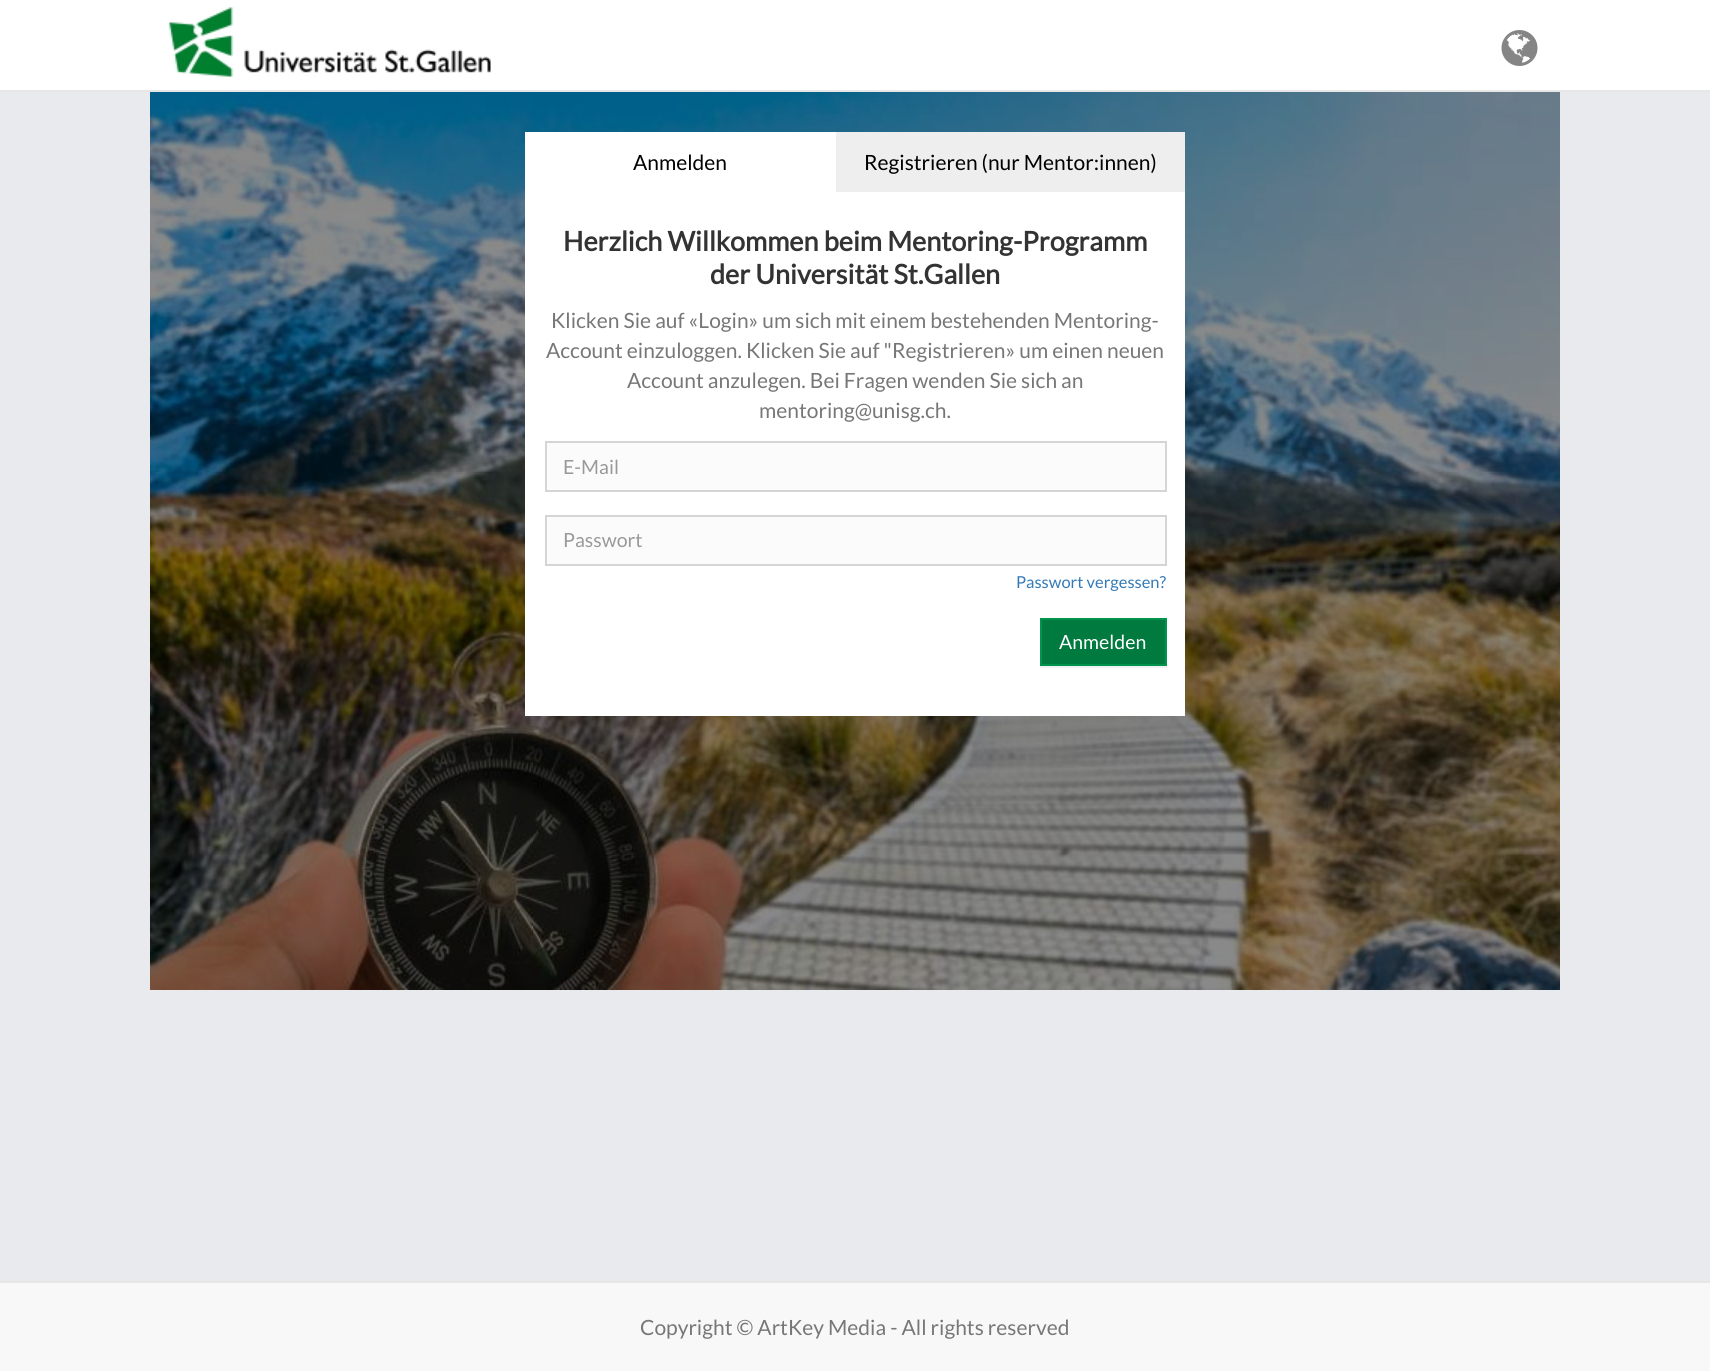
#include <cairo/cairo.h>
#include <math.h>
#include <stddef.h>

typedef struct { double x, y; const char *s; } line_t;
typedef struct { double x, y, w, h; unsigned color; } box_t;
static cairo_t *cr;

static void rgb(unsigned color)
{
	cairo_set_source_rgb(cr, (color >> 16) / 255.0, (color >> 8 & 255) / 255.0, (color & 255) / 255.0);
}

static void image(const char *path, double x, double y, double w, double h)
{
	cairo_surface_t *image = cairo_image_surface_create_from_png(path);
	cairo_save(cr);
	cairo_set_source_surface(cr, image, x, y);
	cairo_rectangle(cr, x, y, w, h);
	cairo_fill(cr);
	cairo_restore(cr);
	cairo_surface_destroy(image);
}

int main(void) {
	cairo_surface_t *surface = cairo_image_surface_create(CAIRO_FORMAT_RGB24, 1710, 1371);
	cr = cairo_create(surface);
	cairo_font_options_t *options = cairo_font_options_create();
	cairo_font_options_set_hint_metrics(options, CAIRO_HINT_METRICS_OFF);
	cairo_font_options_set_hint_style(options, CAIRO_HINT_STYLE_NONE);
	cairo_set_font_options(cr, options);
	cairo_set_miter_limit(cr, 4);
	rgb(0xe9eaed);
	cairo_paint(cr);
	rgb(0xffffff);
	cairo_rectangle(cr, 0, 0, 1710, 90);
	cairo_fill(cr);
	rgb(0xe7e7e7);
	cairo_rectangle(cr, 0, 90, 1710, 2);
	cairo_fill(cr);
	image("img/1.png", 168, 7, 323, 70);
	image("img/2.png", 1501, 30, 37, 36);
	image("img/3.png", 150, 92, 1410, 898);
	{
		static const box_t items[] = {
			{525, 132, 311, 60, 0xffffff},
			{836, 132, 349, 60, 0xeeeeee},
			{525, 192, 660, 524, 0xffffff},
		};
		for (size_t i = 0; i < sizeof items / sizeof *items; i++) {
			rgb(items[i].color);
			cairo_rectangle(cr, items[i].x, items[i].y, items[i].w, items[i].h);
			cairo_fill(cr);
		}
	}
	rgb(0xfbfbfb);
	cairo_rectangle(cr, 546, 442, 620, 49);
	cairo_fill_preserve(cr);
	rgb(0xd5d5d5);
	cairo_stroke(cr);
	rgb(0xfbfbfb);
	cairo_rectangle(cr, 546, 516, 620, 49);
	cairo_fill_preserve(cr);
	rgb(0xd5d5d5);
	cairo_stroke(cr);
	rgb(0xf2f2f2);
	cairo_rectangle(cr, 1040, 666, 127, 2);
	cairo_fill(cr);
	rgb(0x007a3f);
	cairo_rectangle(cr, 1041, 619, 125, 46);
	cairo_fill_preserve(cr);
	rgb(0x00944c);
	cairo_stroke(cr);
	rgb(0xf8f8f8);
	cairo_rectangle(cr, 0, 1283, 1710, 88);
	cairo_fill(cr);
	rgb(0xe7e7e7);
	cairo_rectangle(cr, 0, 1281, 1710, 2);
	cairo_fill(cr);
	cairo_select_font_face(cr, "Lato", CAIRO_FONT_SLANT_NORMAL, CAIRO_FONT_WEIGHT_NORMAL);
	cairo_set_font_size(cr, 21);
	rgb(0x000000);
	cairo_move_to(cr, 633, 170);
	cairo_show_text(cr, "Anmelden");
	cairo_move_to(cr, 864, 170);
	cairo_show_text(cr, "Registrieren (nur Mentor:innen)");
	cairo_select_font_face(cr, "Lato", CAIRO_FONT_SLANT_NORMAL, CAIRO_FONT_WEIGHT_BOLD);
	cairo_set_font_size(cr, 27);
	rgb(0x333333);
	cairo_move_to(cr, 563, 251);
	cairo_show_text(cr, "Herzlich Willkommen beim Mentoring-Programm");
	cairo_move_to(cr, 710, 284);
	cairo_show_text(cr, "der Universität St.Gallen");
	cairo_select_font_face(cr, "Lato", CAIRO_FONT_SLANT_NORMAL, CAIRO_FONT_WEIGHT_NORMAL);
	cairo_set_font_size(cr, 21);
	rgb(0x777777);
	{
		static const line_t items[] = {
			{551, 328, "Klicken Sie auf «Login» um sich mit einem bestehenden Mentoring-"},
			{546, 358, "Account einzuloggen. Klicken Sie auf \"Registrieren» um einen neuen"},
			{627, 388, "Account anzulegen. Bei Fragen wenden Sie sich an"},
			{759, 418, "mentoring@unisg.ch."},
		};
		for (size_t i = 0; i < sizeof items / sizeof *items; i++) {
			cairo_move_to(cr, items[i].x, items[i].y);
			cairo_show_text(cr, items[i].s);
		}
	}
	cairo_set_font_size(cr, 19.5);
	rgb(0x999999);
	cairo_move_to(cr, 563, 474);
	cairo_show_text(cr, "E-Mail");
	cairo_move_to(cr, 563, 547);
	cairo_show_text(cr, "Passwort");
	cairo_set_font_size(cr, 16.5);
	rgb(0x337ab7);
	cairo_move_to(cr, 1016, 588);
	cairo_show_text(cr, "Passwort vergessen?");
	cairo_set_font_size(cr, 19.5);
	rgb(0xffffff);
	cairo_move_to(cr, 1059, 649);
	cairo_show_text(cr, "Anmelden");
	cairo_set_font_size(cr, 21);
	rgb(0x777777);
	cairo_move_to(cr, 640, 1335);
	cairo_show_text(cr, "Copyright © ArtKey Media - All rights reserved");
	cairo_surface_write_to_png(surface, "page.png");
	cairo_font_options_destroy(options);
	cairo_destroy(cr);
	cairo_surface_destroy(surface);
	return 0;
}
